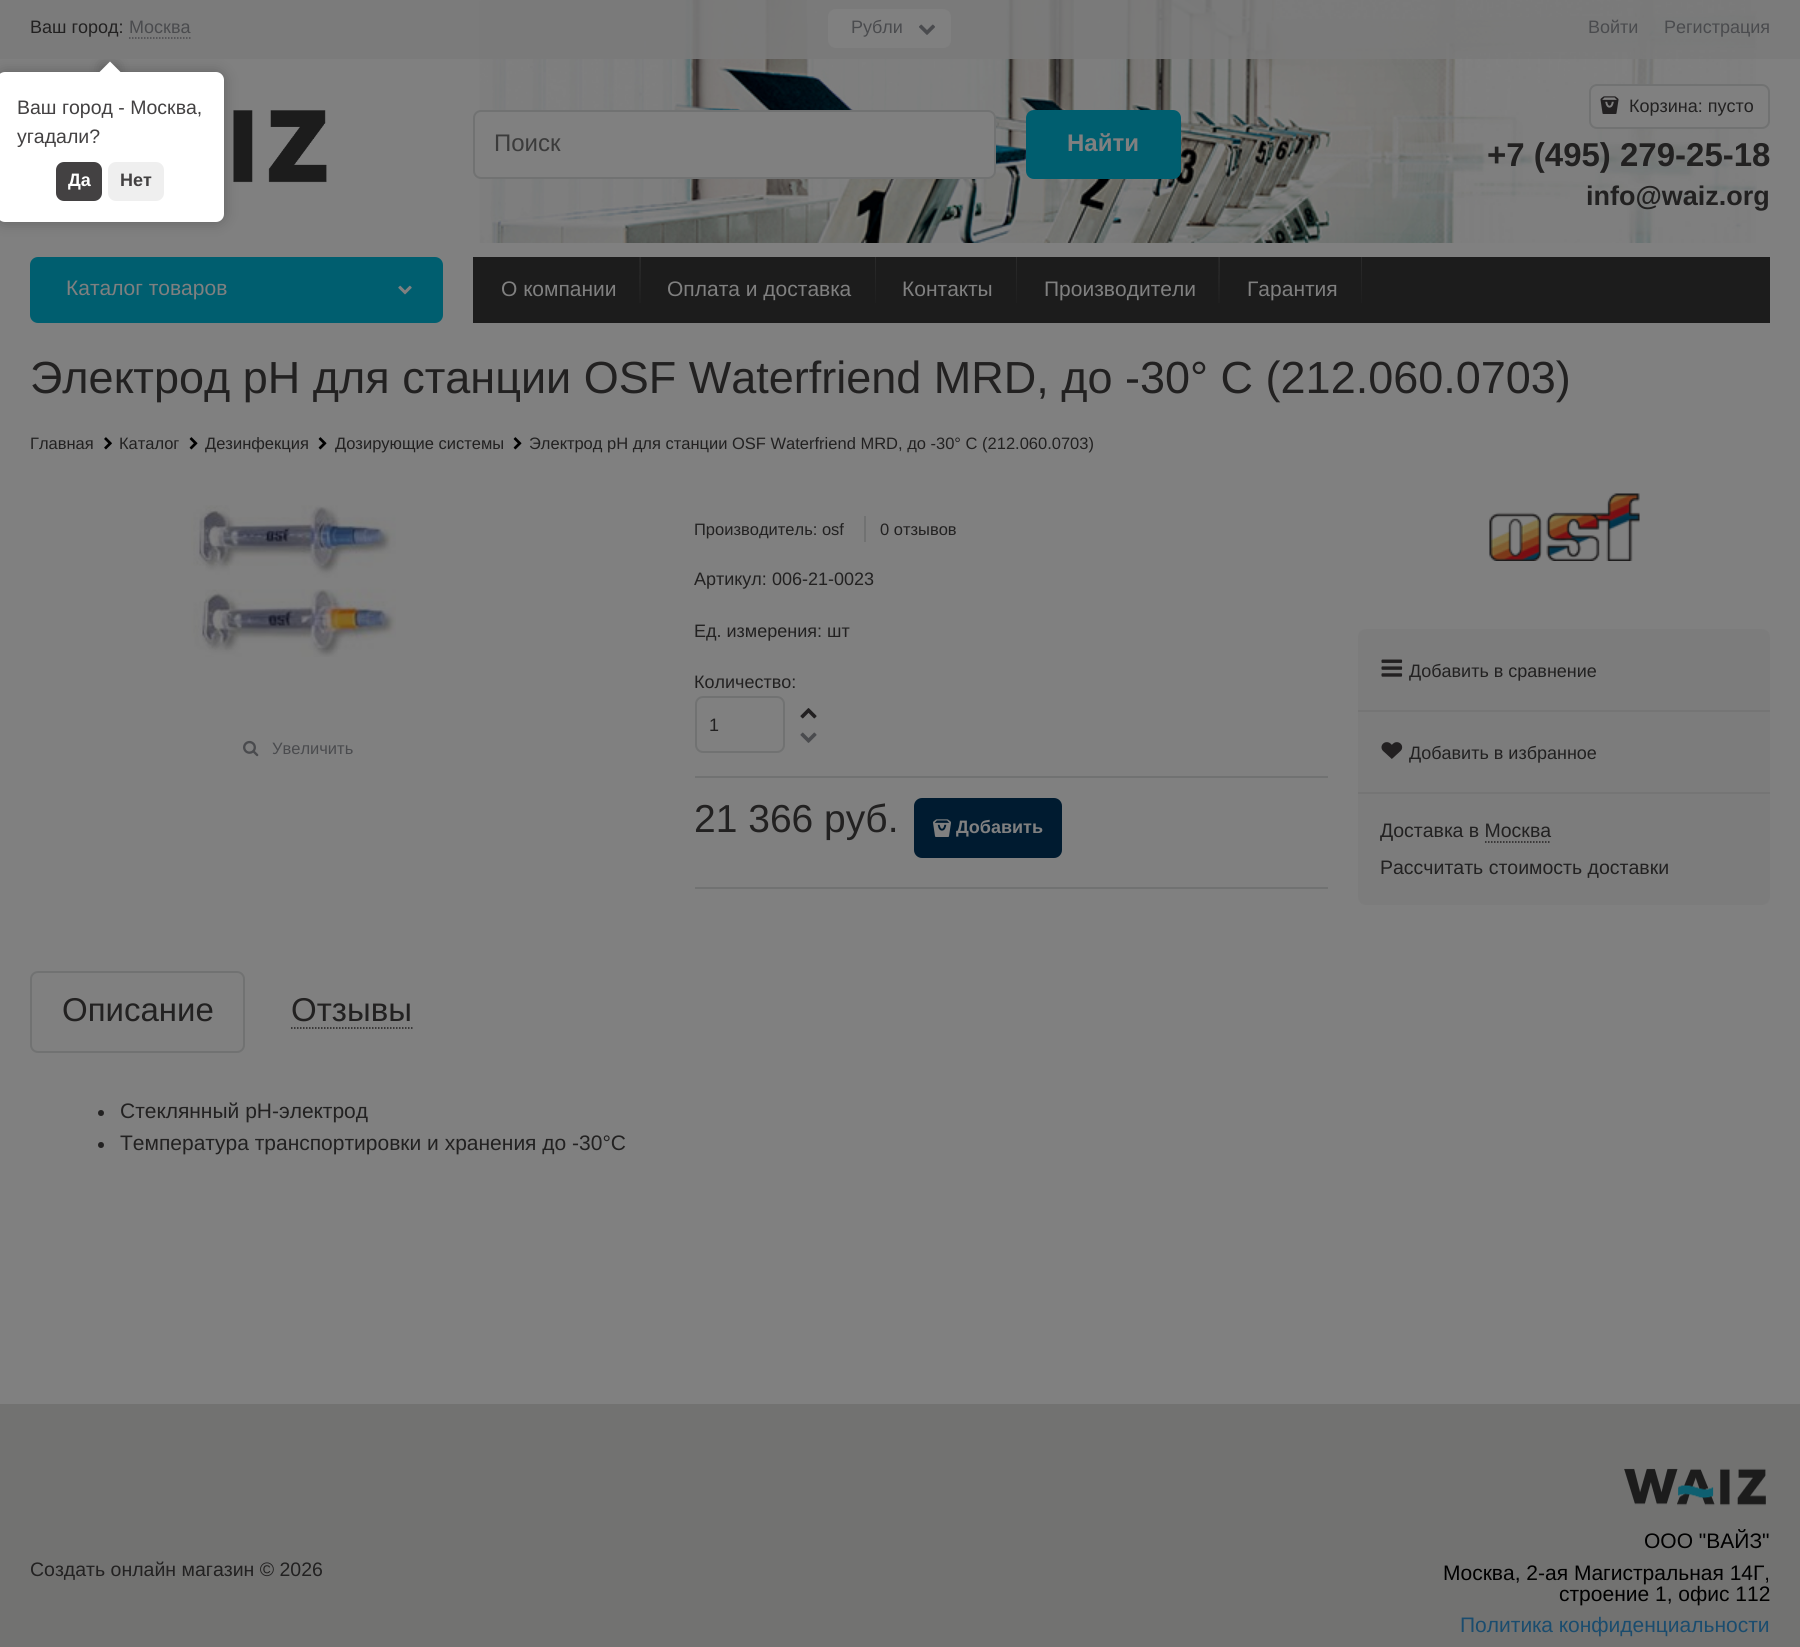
#include <cairo/cairo.h>
#include <math.h>
#include <stddef.h>

typedef struct { double x, y; const char *s; } line_t;
static cairo_t *cr;

static void rgb(unsigned color)
{
	cairo_set_source_rgb(cr, (color >> 16) / 255.0, (color >> 8 & 255) / 255.0, (color & 255) / 255.0);
}

static void rrect(double x, double y, double w, double h, double r)
{
	cairo_new_sub_path(cr);
	cairo_arc(cr, x + w - r, y + h - r, r, 0, M_PI / 2);
	cairo_arc(cr, x + r, y + h - r, r, M_PI / 2, M_PI);
	cairo_arc(cr, x + r, y + r, r, M_PI, 1.5 * M_PI);
	cairo_arc(cr, x + w - r, y + r, r, 1.5 * M_PI, 2 * M_PI);
	cairo_close_path(cr);
}

static void soft_shadow(double x, double y, double w, double h, double r, double blur, double alpha)
{
	cairo_push_group_with_content(cr, CAIRO_CONTENT_ALPHA);
	cairo_set_operator(cr, CAIRO_OPERATOR_SOURCE);
	for (int i = 15; i >= -15 && fmin(w, h) + blur * i / 3 > 0; i -= 2) {
		double e = blur * i / 6;
		cairo_set_source_rgba(cr, 0, 0, 0, alpha * erfc((i - 1) / 8.5) / 2);
		rrect(x - e, y - e, w + 2 * e, h + 2 * e, fmax(0, fmin(r + e + blur * .6, fmin(w, h) / 2 + e)));
		cairo_fill(cr);
	}
	cairo_pattern_t *soft = cairo_pop_group(cr);
	cairo_mask(cr, soft);
	cairo_pattern_destroy(soft);
}

static void image(const char *path, double x, double y, double w, double h)
{
	cairo_surface_t *image = cairo_image_surface_create_from_png(path);
	cairo_save(cr);
	cairo_set_source_surface(cr, image, x, y);
	cairo_rectangle(cr, x, y, w, h);
	cairo_fill(cr);
	cairo_restore(cr);
	cairo_surface_destroy(image);
}

int main(void) {
	cairo_surface_t *surface = cairo_image_surface_create(CAIRO_FORMAT_RGB24, 1800, 1647);
	cr = cairo_create(surface);
	cairo_font_options_t *options = cairo_font_options_create();
	cairo_font_options_set_hint_metrics(options, CAIRO_HINT_METRICS_OFF);
	cairo_font_options_set_hint_style(options, CAIRO_HINT_STYLE_NONE);
	cairo_set_font_options(cr, options);
	cairo_set_miter_limit(cr, 4);
	cairo_pattern_t *gradient;
	rgb(0x808080);
	cairo_paint(cr);
	image("img/1.png", 479, 0, 1278, 243);
	cairo_set_source_rgba(cr, 0.478, 0.478, 0.478, 0.9);
	cairo_rectangle(cr, 0, 0, 1800, 59);
	cairo_fill(cr);
	cairo_new_path(cr);
	cairo_move_to(cr, 129, 38);
	cairo_line_to(cr, 190.5, 38);
	rgb(0x4a4b4e);
	cairo_set_line_width(cr, 1.5);
	cairo_set_dash(cr, (double[]){1.5, 1.5}, 2, 0);
	cairo_stroke(cr);
	rgb(0x808080);
	rrect(828, 9, 123, 39, 8);
	cairo_fill(cr);
	image("img/2.png", 919, 24, 16, 11);
	image("img/3.png", 233, 110, 94, 73);
	rrect(474, 111, 521, 67, 7);
	cairo_fill_preserve(cr);
	rgb(0x717272);
	cairo_set_line_width(cr, 2);
	cairo_set_dash(cr, NULL, 0, 0);
	cairo_stroke(cr);
	rgb(0x005e6f);
	rrect(1026, 110, 155, 69, 8);
	cairo_fill(cr);
	rgb(0x808080);
	rrect(1590, 85, 179, 43, 7);
	cairo_fill_preserve(cr);
	rgb(0x717272);
	cairo_stroke(cr);
	image("img/4.png", 1600, 96, 19, 18);
	rgb(0x005e6f);
	rrect(30, 257, 413, 66, 8);
	cairo_fill(cr);
	image("img/5.png", 398, 285, 14, 10);
	rgb(0x1c1c1c);
	cairo_rectangle(cr, 473, 257, 1297, 66);
	cairo_fill(cr);
	gradient = cairo_pattern_create_linear(640, 257, 640, 323);
	cairo_pattern_add_color_stop_rgba(gradient, 0, 0.165, 0.165, 0.165, 1);
	cairo_pattern_add_color_stop_rgba(gradient, 0.72, 0.118, 0.118, 0.118, 1);
	cairo_pattern_add_color_stop_rgba(gradient, 1, 0.11, 0.11, 0.11, 1);
	cairo_set_source(cr, gradient);
	cairo_pattern_destroy(gradient);
	cairo_rectangle(cr, 639, 257, 2, 46);
	cairo_fill(cr);
	gradient = cairo_pattern_create_linear(638, 257, 638, 323);
	cairo_pattern_add_color_stop_rgba(gradient, 0, 0.114, 0.114, 0.114, 0.39);
	cairo_pattern_add_color_stop_rgba(gradient, 0.17, 0.114, 0.114, 0.114, 0.33);
	cairo_pattern_add_color_stop_rgba(gradient, 0.61, 0.114, 0.114, 0.114, 0.12);
	cairo_pattern_add_color_stop_rgba(gradient, 0.96, 0.114, 0.114, 0.114, 0.01);
	cairo_pattern_add_color_stop_rgba(gradient, 0.98, 0.502, 0.502, 0.502, 0.01);
	cairo_pattern_add_color_stop_rgba(gradient, 1, 0.502, 0.502, 0.502, 0);
	cairo_set_source(cr, gradient);
	cairo_pattern_destroy(gradient);
	cairo_rectangle(cr, 639, 257, 1, 18);
	cairo_fill(cr);
	gradient = cairo_pattern_create_linear(875, 257, 875, 323);
	cairo_pattern_add_color_stop_rgba(gradient, 0, 0.165, 0.165, 0.165, 1);
	cairo_pattern_add_color_stop_rgba(gradient, 0.72, 0.118, 0.118, 0.118, 1);
	cairo_pattern_add_color_stop_rgba(gradient, 1, 0.11, 0.11, 0.11, 1);
	cairo_set_source(cr, gradient);
	cairo_pattern_destroy(gradient);
	cairo_rectangle(cr, 875, 257, 1, 46);
	cairo_fill(cr);
	gradient = cairo_pattern_create_linear(1016, 257, 1016, 323);
	cairo_pattern_add_color_stop_rgba(gradient, 0, 0.165, 0.165, 0.165, 1);
	cairo_pattern_add_color_stop_rgba(gradient, 0.72, 0.118, 0.118, 0.118, 1);
	cairo_pattern_add_color_stop_rgba(gradient, 1, 0.11, 0.11, 0.11, 1);
	cairo_set_source(cr, gradient);
	cairo_pattern_destroy(gradient);
	cairo_rectangle(cr, 1016, 257, 1, 46);
	cairo_fill(cr);
	gradient = cairo_pattern_create_linear(1219, 257, 1219, 323);
	cairo_pattern_add_color_stop_rgba(gradient, 0, 0.165, 0.165, 0.165, 1);
	cairo_pattern_add_color_stop_rgba(gradient, 0.72, 0.118, 0.118, 0.118, 1);
	cairo_pattern_add_color_stop_rgba(gradient, 1, 0.11, 0.11, 0.11, 1);
	cairo_set_source(cr, gradient);
	cairo_pattern_destroy(gradient);
	cairo_rectangle(cr, 1218, 257, 2, 46);
	cairo_fill(cr);
	gradient = cairo_pattern_create_linear(1217, 257, 1217, 323);
	cairo_pattern_add_color_stop_rgba(gradient, 0, 0.114, 0.114, 0.114, 0.39);
	cairo_pattern_add_color_stop_rgba(gradient, 0.17, 0.114, 0.114, 0.114, 0.33);
	cairo_pattern_add_color_stop_rgba(gradient, 0.61, 0.114, 0.114, 0.114, 0.12);
	cairo_pattern_add_color_stop_rgba(gradient, 0.96, 0.114, 0.114, 0.114, 0.01);
	cairo_pattern_add_color_stop_rgba(gradient, 0.98, 0.502, 0.502, 0.502, 0.01);
	cairo_pattern_add_color_stop_rgba(gradient, 1, 0.502, 0.502, 0.502, 0);
	cairo_set_source(cr, gradient);
	cairo_pattern_destroy(gradient);
	cairo_rectangle(cr, 1218, 257, 1, 18);
	cairo_fill(cr);
	gradient = cairo_pattern_create_linear(1361, 257, 1361, 323);
	cairo_pattern_add_color_stop_rgba(gradient, 0, 0.165, 0.165, 0.165, 1);
	cairo_pattern_add_color_stop_rgba(gradient, 0.72, 0.118, 0.118, 0.118, 1);
	cairo_pattern_add_color_stop_rgba(gradient, 1, 0.11, 0.11, 0.11, 1);
	cairo_set_source(cr, gradient);
	cairo_pattern_destroy(gradient);
	cairo_rectangle(cr, 1361, 257, 1, 46);
	cairo_fill(cr);
	image("img/6.png", 104, 437, 8, 13);
	image("img/7.png", 189, 437, 9, 13);
	image("img/7.png", 318, 437, 9, 13);
	image("img/7.png", 513, 437, 9, 13);
	image("img/8.png", 191, 505, 205, 152);
	image("img/9.png", 243, 740, 16, 17);
	rgb(0x717272);
	cairo_rectangle(cr, 864, 516, 2, 26);
	cairo_fill(cr);
	rrect(696, 697, 88, 55, 7);
	cairo_stroke(cr);
	image("img/10.png", 800, 708, 17, 11);
	image("img/11.png", 800, 732, 17, 11);
	cairo_rectangle(cr, 695, 776, 633, 2);
	cairo_fill(cr);
	cairo_rectangle(cr, 695, 887, 633, 2);
	cairo_fill(cr);
	rgb(0x001b30);
	rrect(914, 798, 148, 60, 8);
	cairo_fill(cr);
	image("img/12.png", 933, 819, 18, 18);
	rrect(31, 972, 213, 80, 7);
	rgb(0x717272);
	cairo_stroke(cr);
	cairo_new_path(cr);
	cairo_move_to(cr, 291, 1028);
	cairo_line_to(cr, 412.5, 1028);
	rgb(0x222121);
	cairo_set_line_width(cr, 1.5);
	cairo_set_dash(cr, (double[]){1.5, 1.5}, 2, 0);
	cairo_stroke(cr);
	cairo_arc(cr, 101, 1113, 3, 0, 2 * M_PI);
	cairo_fill(cr);
	cairo_arc(cr, 101, 1145, 3, 0, 2 * M_PI);
	cairo_fill(cr);
	image("img/13.png", 1489, 493, 151, 68);
	rgb(0x7c7c7c);
	rrect(1358, 629, 412, 276, 8);
	cairo_fill(cr);
	rgb(0x757575);
	cairo_rectangle(cr, 1358, 710, 412, 2);
	cairo_fill(cr);
	image("img/14.png", 1381, 659, 22, 18);
	cairo_rectangle(cr, 1358, 792, 412, 2);
	cairo_fill(cr);
	image("img/15.png", 1381, 742, 22, 17);
	cairo_new_path(cr);
	cairo_move_to(cr, 1485, 842);
	cairo_line_to(cr, 1551, 842);
	rgb(0x222121);
	cairo_stroke(cr);
	rgb(0x727271);
	cairo_rectangle(cr, 0, 1404, 1800, 243);
	cairo_fill(cr);
	image("img/16.png", 1624, 1468, 142, 38);
	rgb(0x000000);
	soft_shadow(-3, 72, 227, 150, 8, 7, 0.25);
	rgb(0xffffff);
	rrect(-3, 72, 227, 150, 8);
	cairo_fill(cr);
	cairo_save(cr);
	cairo_rectangle(cr, 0, 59, 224, 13);
	cairo_clip(cr);
	rgb(0x000000);
	soft_shadow(102, 65, 15, 15, 0, 7, 0.25);
	cairo_restore(cr);
	cairo_save(cr);
	cairo_rectangle(cr, 0, 59, 224, 13);
	cairo_clip(cr);
	cairo_new_path(cr);
	cairo_move_to(cr, 110, 61.5);
	cairo_line_to(cr, 120.5, 72);
	cairo_line_to(cr, 110, 82.5);
	cairo_line_to(cr, 99.5, 72);
	cairo_close_path(cr);
	cairo_fill(cr);
	cairo_restore(cr);
	rgb(0x434142);
	rrect(56, 162, 46, 39, 8);
	cairo_fill(cr);
	rgb(0xefefef);
	rrect(108, 162, 56, 39, 8);
	cairo_fill(cr);
	cairo_select_font_face(cr, "Liberation Sans", CAIRO_FONT_SLANT_NORMAL, CAIRO_FONT_WEIGHT_NORMAL);
	cairo_set_font_size(cr, 18);
	rgb(0x222121);
	cairo_move_to(cr, 30, 33);
	cairo_show_text(cr, "Ваш город:");
	rgb(0x4a4b4e);
	{
		static const line_t items[] = {
			{129, 33, "Москва"},
			{851, 33, "Рубли"},
			{1588, 33, "Войти"},
			{1664, 33, "Регистрация"},
		};
		for (size_t i = 0; i < sizeof items / sizeof *items; i++) {
			cairo_move_to(cr, items[i].x, items[i].y);
			cairo_show_text(cr, items[i].s);
		}
	}
	cairo_set_font_size(cr, 24);
	rgb(0x3b3b3b);
	cairo_move_to(cr, 494, 151);
	cairo_show_text(cr, "Поиск");
	cairo_select_font_face(cr, "Liberation Sans", CAIRO_FONT_SLANT_NORMAL, CAIRO_FONT_WEIGHT_BOLD);
	rgb(0x808080);
	cairo_move_to(cr, 1067, 151);
	cairo_show_text(cr, "Найти");
	cairo_select_font_face(cr, "Liberation Sans", CAIRO_FONT_SLANT_NORMAL, CAIRO_FONT_WEIGHT_NORMAL);
	cairo_set_font_size(cr, 18);
	rgb(0x222121);
	cairo_move_to(cr, 1629, 112);
	cairo_show_text(cr, "Корзина: пусто");
	cairo_select_font_face(cr, "Liberation Sans", CAIRO_FONT_SLANT_NORMAL, CAIRO_FONT_WEIGHT_BOLD);
	cairo_set_font_size(cr, 33);
	cairo_move_to(cr, 1487, 166);
	cairo_show_text(cr, "+7 (495) 279-25-18");
	cairo_set_font_size(cr, 27);
	cairo_move_to(cr, 1586, 205);
	cairo_show_text(cr, "info@waiz.org");
	cairo_select_font_face(cr, "Liberation Sans", CAIRO_FONT_SLANT_NORMAL, CAIRO_FONT_WEIGHT_NORMAL);
	cairo_set_font_size(cr, 21);
	rgb(0x808080);
	{
		static const line_t items[] = {
			{66, 295, "Каталог товаров"},
			{501, 296, "О компании"},
			{667, 296, "Оплата и доставка"},
			{902, 296, "Контакты"},
			{1044, 296, "Производители"},
			{1247, 296, "Гарантия"},
		};
		for (size_t i = 0; i < sizeof items / sizeof *items; i++) {
			cairo_move_to(cr, items[i].x, items[i].y);
			cairo_show_text(cr, items[i].s);
		}
	}
	cairo_set_font_size(cr, 45);
	rgb(0x222121);
	cairo_move_to(cr, 30, 393);
	cairo_show_text(cr, "Электрод pH для станции OSF Waterfriend MRD, до -30° С (212.060.0703)");
	cairo_set_font_size(cr, 16.5);
	{
		static const line_t items[] = {
			{30, 449, "Главная"},
			{119, 449, "Каталог"},
			{205, 449, "Дезинфекция"},
			{335, 449, "Дозирующие системы"},
			{529, 449, "Электрод pH для станции OSF Waterfriend MRD, до -30° С (212.060.0703)"},
		};
		for (size_t i = 0; i < sizeof items / sizeof *items; i++) {
			cairo_move_to(cr, items[i].x, items[i].y);
			cairo_show_text(cr, items[i].s);
		}
	}
	rgb(0x4a4b4e);
	cairo_move_to(cr, 272, 754);
	cairo_show_text(cr, "Увеличить");
	rgb(0x222121);
	cairo_move_to(cr, 694, 535);
	cairo_show_text(cr, "Производитель: osf");
	cairo_move_to(cr, 880, 535);
	cairo_show_text(cr, "0 отзывов");
	cairo_set_font_size(cr, 18);
	{
		static const line_t items[] = {
			{694, 585, "Артикул:"},
			{772, 585, "006-21-0023"},
			{694, 637, "Ед. измерения:"},
			{827, 637, "шт"},
			{694, 688, "Количество:"},
			{709, 731, "1"},
		};
		for (size_t i = 0; i < sizeof items / sizeof *items; i++) {
			cairo_move_to(cr, items[i].x, items[i].y);
			cairo_show_text(cr, items[i].s);
		}
	}
	cairo_set_font_size(cr, 39);
	cairo_move_to(cr, 694, 832);
	cairo_show_text(cr, "21 366 руб.");
	cairo_select_font_face(cr, "Liberation Sans", CAIRO_FONT_SLANT_NORMAL, CAIRO_FONT_WEIGHT_BOLD);
	cairo_set_font_size(cr, 18);
	rgb(0x808080);
	cairo_move_to(cr, 956, 833);
	cairo_show_text(cr, "Добавить");
	cairo_select_font_face(cr, "Liberation Sans", CAIRO_FONT_SLANT_NORMAL, CAIRO_FONT_WEIGHT_NORMAL);
	cairo_set_font_size(cr, 33);
	rgb(0x222121);
	cairo_move_to(cr, 62, 1021);
	cairo_show_text(cr, "Описание");
	cairo_move_to(cr, 291, 1021);
	cairo_show_text(cr, "Отзывы");
	cairo_set_font_size(cr, 21);
	cairo_move_to(cr, 120, 1118);
	cairo_show_text(cr, "Стеклянный рН-электрод");
	cairo_move_to(cr, 120, 1150);
	cairo_show_text(cr, "Температура транспортировки и хранения до -30°С");
	cairo_set_font_size(cr, 18);
	cairo_move_to(cr, 1409, 677);
	cairo_show_text(cr, "Добавить в сравнение");
	cairo_move_to(cr, 1409, 759);
	cairo_show_text(cr, "Добавить в избранное");
	cairo_set_font_size(cr, 19.5);
	{
		static const line_t items[] = {
			{1380, 837, "Доставка в Москва"},
			{1380, 874, "Рассчитать стоимость доставки"},
			{30, 1576, "Создать онлайн магазин © 2026"},
		};
		for (size_t i = 0; i < sizeof items / sizeof *items; i++) {
			cairo_move_to(cr, items[i].x, items[i].y);
			cairo_show_text(cr, items[i].s);
		}
	}
	cairo_set_font_size(cr, 21);
	rgb(0x000000);
	{
		static const line_t items[] = {
			{1644, 1548, "ООО \"ВАЙЗ\""},
			{1443, 1580, "Москва, 2-ая Магистральная 14Г,"},
			{1559, 1601, "строение 1, офис 112"},
		};
		for (size_t i = 0; i < sizeof items / sizeof *items; i++) {
			cairo_move_to(cr, items[i].x, items[i].y);
			cairo_show_text(cr, items[i].s);
		}
	}
	rgb(0x1a4c6e);
	cairo_move_to(cr, 1460, 1632);
	cairo_show_text(cr, "Политика конфиденциальности");
	cairo_set_font_size(cr, 19.5);
	rgb(0x434142);
	cairo_move_to(cr, 17, 114);
	cairo_show_text(cr, "Ваш город - Москва,");
	cairo_move_to(cr, 17, 143);
	cairo_show_text(cr, "угадали?");
	cairo_select_font_face(cr, "Liberation Sans", CAIRO_FONT_SLANT_NORMAL, CAIRO_FONT_WEIGHT_BOLD);
	cairo_set_font_size(cr, 18);
	rgb(0xffffff);
	cairo_move_to(cr, 68, 186);
	cairo_show_text(cr, "Да");
	rgb(0x434142);
	cairo_move_to(cr, 120, 186);
	cairo_show_text(cr, "Нет");
	cairo_surface_write_to_png(surface, "page.png");
	cairo_font_options_destroy(options);
	cairo_destroy(cr);
	cairo_surface_destroy(surface);
	return 0;
}
